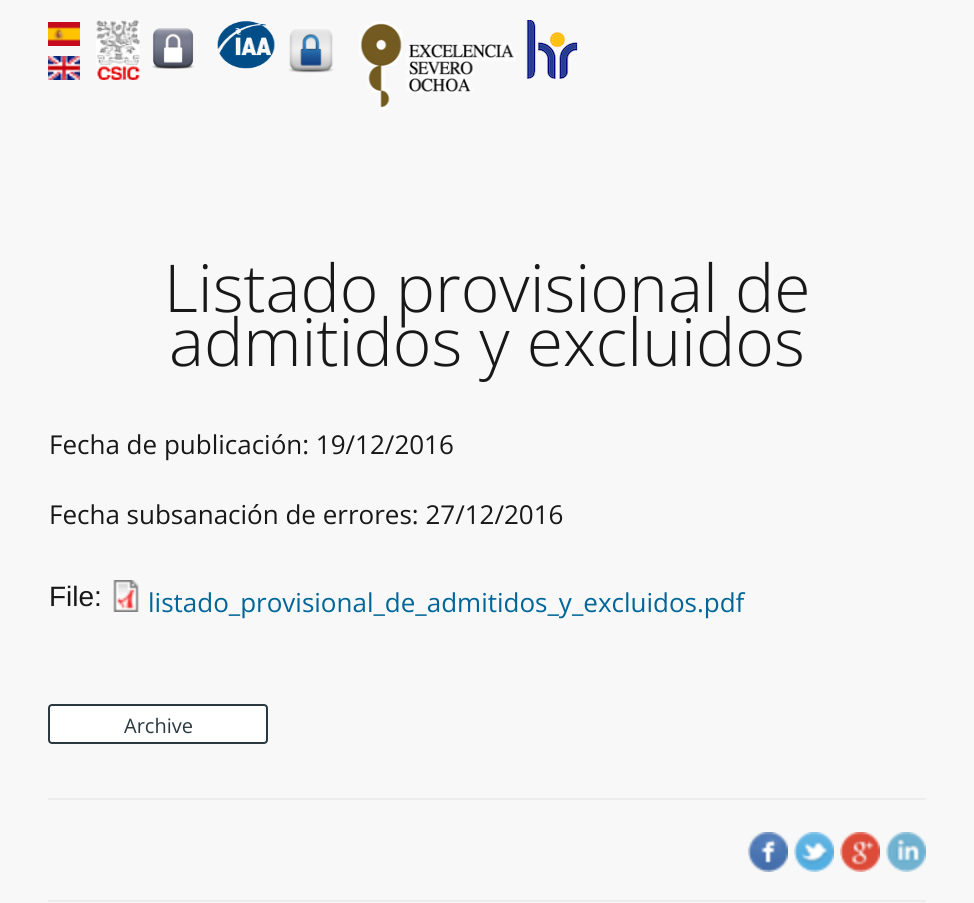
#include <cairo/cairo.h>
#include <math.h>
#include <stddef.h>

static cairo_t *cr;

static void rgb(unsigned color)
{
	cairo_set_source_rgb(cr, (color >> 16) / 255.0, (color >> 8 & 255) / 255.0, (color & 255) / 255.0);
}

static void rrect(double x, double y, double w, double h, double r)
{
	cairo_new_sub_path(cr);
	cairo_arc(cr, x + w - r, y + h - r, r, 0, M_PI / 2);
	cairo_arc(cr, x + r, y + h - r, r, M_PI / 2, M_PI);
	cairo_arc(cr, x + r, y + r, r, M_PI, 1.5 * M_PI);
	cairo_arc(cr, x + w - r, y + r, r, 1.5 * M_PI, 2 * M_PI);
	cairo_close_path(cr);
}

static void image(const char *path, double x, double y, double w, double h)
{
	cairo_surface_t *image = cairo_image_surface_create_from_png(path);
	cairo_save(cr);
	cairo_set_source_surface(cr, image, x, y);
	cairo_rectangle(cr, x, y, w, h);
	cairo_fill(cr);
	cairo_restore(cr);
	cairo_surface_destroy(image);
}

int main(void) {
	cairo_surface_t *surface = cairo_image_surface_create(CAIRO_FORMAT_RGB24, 974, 903);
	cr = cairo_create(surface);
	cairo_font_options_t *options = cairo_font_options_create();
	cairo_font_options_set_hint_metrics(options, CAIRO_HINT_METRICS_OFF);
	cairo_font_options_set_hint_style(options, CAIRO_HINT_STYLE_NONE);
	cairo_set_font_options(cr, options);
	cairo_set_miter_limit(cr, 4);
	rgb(0xf8f8f8);
	cairo_paint(cr);
	image("img/1.png", 48, 22, 32, 24);
	image("img/2.png", 48, 56, 32, 24);
	image("img/3.png", 96, 20, 44, 60);
	image("img/4.png", 152, 28, 43, 41);
	image("img/5.png", 217, 21, 58, 48);
	image("img/6.png", 288, 29, 46, 44);
	image("img/7.png", 359, 21, 157, 89);
	image("img/8.png", 526, 20, 52, 59);
	image("img/9.png", 113, 580, 26, 32);
	rgb(0xffffff);
	rrect(49, 705, 218, 38, 3);
	cairo_fill_preserve(cr);
	rgb(0x2a3940);
	cairo_stroke(cr);
	rgb(0xededed);
	cairo_rectangle(cr, 48, 798, 878, 2);
	cairo_fill(cr);
	cairo_rectangle(cr, 48, 900, 878, 2);
	cairo_fill(cr);
	image("img/10.png", 748, 832, 40, 40);
	image("img/11.png", 794, 832, 40, 40);
	image("img/12.png", 840, 832, 40, 40);
	image("img/13.png", 886, 832, 40, 40);
	cairo_select_font_face(cr, "Open Sans Light", CAIRO_FONT_SLANT_NORMAL, CAIRO_FONT_WEIGHT_NORMAL);
	cairo_set_font_size(cr, 66);
	rgb(0x181818);
	cairo_move_to(cr, 164, 312);
	cairo_show_text(cr, "Listado provisional de");
	cairo_move_to(cr, 169, 366);
	cairo_show_text(cr, "admitidos y excluidos");
	cairo_select_font_face(cr, "Open Sans", CAIRO_FONT_SLANT_NORMAL, CAIRO_FONT_WEIGHT_NORMAL);
	cairo_set_font_size(cr, 26);
	cairo_move_to(cr, 49, 454);
	cairo_show_text(cr, "Fecha de publicación: 19/12/2016");
	cairo_move_to(cr, 49, 524);
	cairo_show_text(cr, "Fecha subsanación de errores: 27/12/2016");
	cairo_select_font_face(cr, "Liberation Sans", CAIRO_FONT_SLANT_NORMAL, CAIRO_FONT_WEIGHT_NORMAL);
	cairo_set_font_size(cr, 28);
	cairo_move_to(cr, 49, 606);
	cairo_show_text(cr, "File:");
	cairo_select_font_face(cr, "Open Sans", CAIRO_FONT_SLANT_NORMAL, CAIRO_FONT_WEIGHT_NORMAL);
	cairo_set_font_size(cr, 26);
	rgb(0x006699);
	cairo_move_to(cr, 148, 612);
	cairo_show_text(cr, "listado_provisional_de_admitidos_y_excluidos.pdf");
	cairo_set_font_size(cr, 20);
	rgb(0x2a3940);
	cairo_move_to(cr, 124, 733);
	cairo_show_text(cr, "Archive");
	cairo_surface_write_to_png(surface, "page.png");
	cairo_font_options_destroy(options);
	cairo_destroy(cr);
	cairo_surface_destroy(surface);
	return 0;
}
